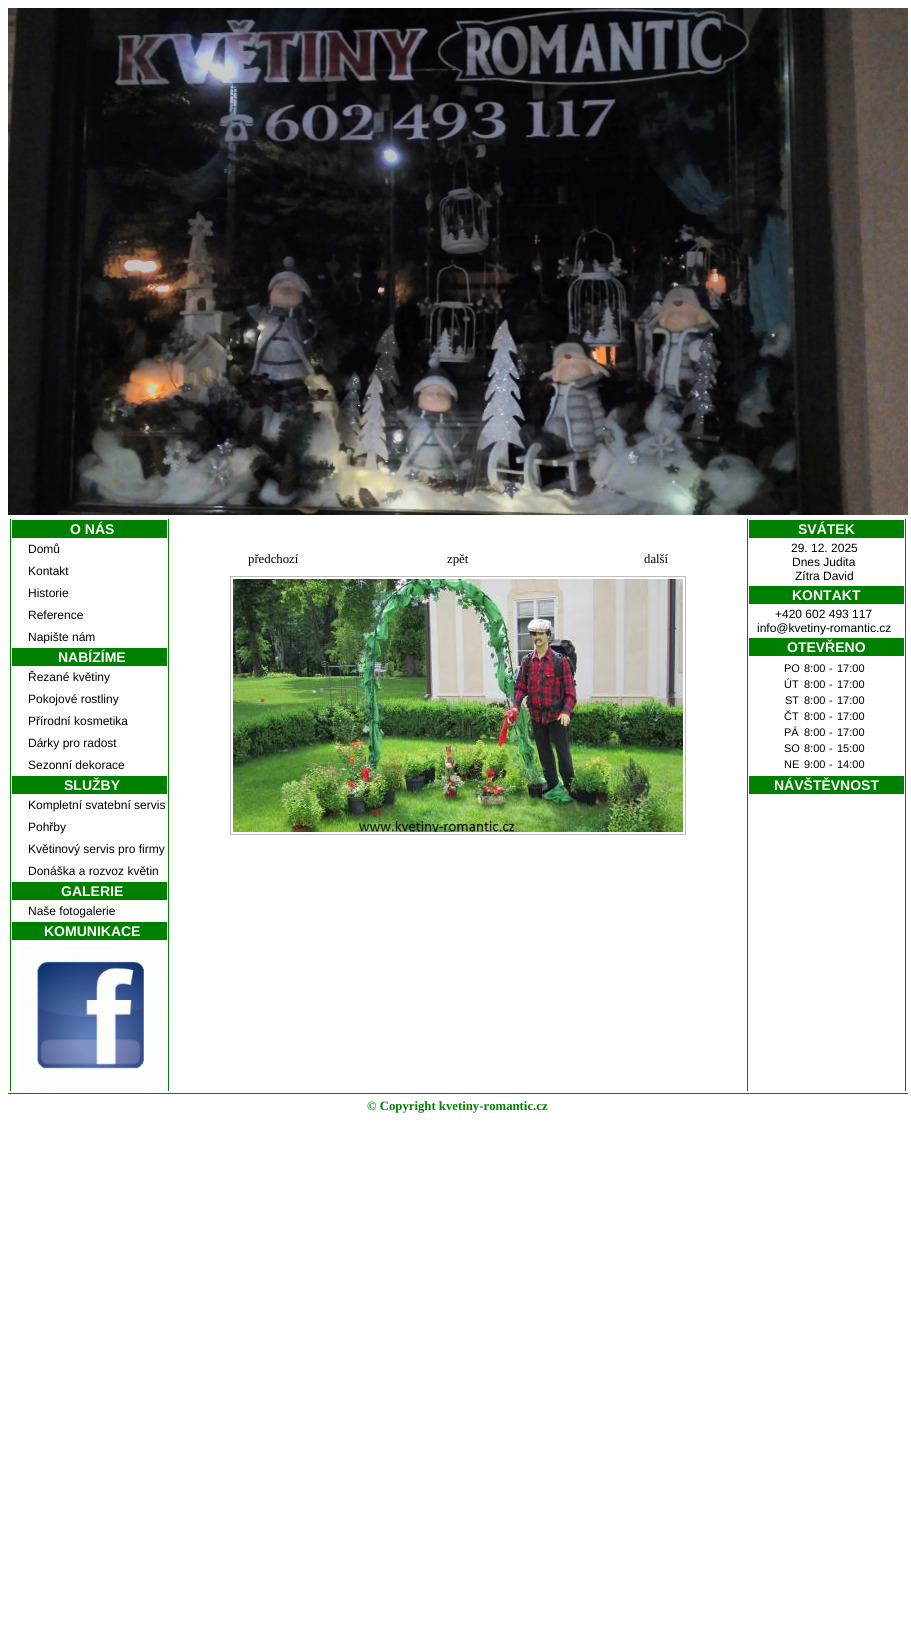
#include <cairo/cairo.h>
#include <math.h>
#include <stddef.h>

typedef struct { double x, y; const char *s; } line_t;
typedef struct { double x, y, w, h; unsigned color; } box_t;
static cairo_t *cr;

static void rgb(unsigned color)
{
	cairo_set_source_rgb(cr, (color >> 16) / 255.0, (color >> 8 & 255) / 255.0, (color & 255) / 255.0);
}

static void image(const char *path, double x, double y, double w, double h)
{
	cairo_surface_t *image = cairo_image_surface_create_from_png(path);
	cairo_save(cr);
	cairo_set_source_surface(cr, image, x, y);
	cairo_rectangle(cr, x, y, w, h);
	cairo_fill(cr);
	cairo_restore(cr);
	cairo_surface_destroy(image);
}

int main(void) {
	cairo_surface_t *surface = cairo_image_surface_create(CAIRO_FORMAT_RGB24, 911, 1639);
	cr = cairo_create(surface);
	cairo_font_options_t *options = cairo_font_options_create();
	cairo_font_options_set_hint_metrics(options, CAIRO_HINT_METRICS_OFF);
	cairo_font_options_set_hint_style(options, CAIRO_HINT_STYLE_NONE);
	cairo_set_font_options(cr, options);
	cairo_set_miter_limit(cr, 4);
	rgb(0xffffff);
	cairo_paint(cr);
	image("img/1.png", 8, 8, 900, 507);
	{
		static const box_t items[] = {
			{168, 519, 1, 572, 0x008000},
			{10, 519, 1, 572, 0x008000},
			{12, 520, 155, 18, 0x008000},
			{12, 648, 155, 18, 0x008000},
			{12, 776, 155, 18, 0x008000},
			{12, 882, 155, 18, 0x008000},
			{12, 922, 155, 18, 0x008000},
		};
		for (size_t i = 0; i < sizeof items / sizeof *items; i++) {
			rgb(items[i].color);
			cairo_rectangle(cr, items[i].x, items[i].y, items[i].w, items[i].h);
			cairo_fill(cr);
		}
	}
	image("img/2.png", 20, 946, 143, 143);
	cairo_rectangle(cr, 230.5, 576.5, 455, 258);
	rgb(0xbbbbbb);
	cairo_set_line_width(cr, 1);
	cairo_stroke(cr);
	image("img/3.png", 233, 579, 450, 253);
	{
		static const box_t items[] = {
			{905, 519, 1, 572, 0x008000},
			{747, 519, 1, 572, 0x008000},
			{749, 520, 155, 18, 0x008000},
			{749, 586, 155, 18, 0x008000},
			{749, 638, 155, 18, 0x008000},
			{749, 776, 155, 18, 0x008000},
			{8, 1093, 900, 1, 0x008000},
		};
		for (size_t i = 0; i < sizeof items / sizeof *items; i++) {
			rgb(items[i].color);
			cairo_rectangle(cr, items[i].x, items[i].y, items[i].w, items[i].h);
			cairo_fill(cr);
		}
	}
	cairo_select_font_face(cr, "Liberation Sans", CAIRO_FONT_SLANT_NORMAL, CAIRO_FONT_WEIGHT_BOLD);
	cairo_set_font_size(cr, 14);
	rgb(0xffffff);
	cairo_move_to(cr, 70, 534);
	cairo_show_text(cr, "O NÁS");
	cairo_select_font_face(cr, "Liberation Sans", CAIRO_FONT_SLANT_NORMAL, CAIRO_FONT_WEIGHT_NORMAL);
	cairo_set_font_size(cr, 12);
	rgb(0x000000);
	{
		static const line_t items[] = {
			{28, 553, "Domů"},
			{28, 575, "Kontakt"},
			{28, 597, "Historie"},
			{28, 619, "Reference"},
			{28, 641, "Napište nám"},
		};
		for (size_t i = 0; i < sizeof items / sizeof *items; i++) {
			cairo_move_to(cr, items[i].x, items[i].y);
			cairo_show_text(cr, items[i].s);
		}
	}
	cairo_select_font_face(cr, "Liberation Sans", CAIRO_FONT_SLANT_NORMAL, CAIRO_FONT_WEIGHT_BOLD);
	cairo_set_font_size(cr, 14);
	rgb(0xffffff);
	cairo_move_to(cr, 58, 662);
	cairo_show_text(cr, "NABÍZÍME");
	cairo_select_font_face(cr, "Liberation Sans", CAIRO_FONT_SLANT_NORMAL, CAIRO_FONT_WEIGHT_NORMAL);
	cairo_set_font_size(cr, 12);
	rgb(0x000000);
	{
		static const line_t items[] = {
			{28, 681, "Řezané květiny"},
			{28, 703, "Pokojové rostliny"},
			{28, 725, "Přírodní kosmetika"},
			{28, 747, "Dárky pro radost"},
			{28, 769, "Sezonní dekorace"},
		};
		for (size_t i = 0; i < sizeof items / sizeof *items; i++) {
			cairo_move_to(cr, items[i].x, items[i].y);
			cairo_show_text(cr, items[i].s);
		}
	}
	cairo_select_font_face(cr, "Liberation Sans", CAIRO_FONT_SLANT_NORMAL, CAIRO_FONT_WEIGHT_BOLD);
	cairo_set_font_size(cr, 14);
	rgb(0xffffff);
	cairo_move_to(cr, 64, 790);
	cairo_show_text(cr, "SLUŽBY");
	cairo_select_font_face(cr, "Liberation Sans", CAIRO_FONT_SLANT_NORMAL, CAIRO_FONT_WEIGHT_NORMAL);
	cairo_set_font_size(cr, 12);
	rgb(0x000000);
	{
		static const line_t items[] = {
			{28, 809, "Kompletní svatební servis"},
			{28, 831, "Pohřby"},
			{28, 853, "Květinový servis pro firmy"},
			{28, 875, "Donáška a rozvoz květin"},
		};
		for (size_t i = 0; i < sizeof items / sizeof *items; i++) {
			cairo_move_to(cr, items[i].x, items[i].y);
			cairo_show_text(cr, items[i].s);
		}
	}
	cairo_select_font_face(cr, "Liberation Sans", CAIRO_FONT_SLANT_NORMAL, CAIRO_FONT_WEIGHT_BOLD);
	cairo_set_font_size(cr, 14);
	rgb(0xffffff);
	cairo_move_to(cr, 61, 896);
	cairo_show_text(cr, "GALERIE");
	cairo_select_font_face(cr, "Liberation Sans", CAIRO_FONT_SLANT_NORMAL, CAIRO_FONT_WEIGHT_NORMAL);
	cairo_set_font_size(cr, 12);
	rgb(0x000000);
	cairo_move_to(cr, 28, 915);
	cairo_show_text(cr, "Naše fotogalerie");
	cairo_select_font_face(cr, "Liberation Sans", CAIRO_FONT_SLANT_NORMAL, CAIRO_FONT_WEIGHT_BOLD);
	cairo_set_font_size(cr, 14);
	rgb(0xffffff);
	cairo_move_to(cr, 44, 936);
	cairo_show_text(cr, "KOMUNIKACE");
	cairo_select_font_face(cr, "Liberation Serif", CAIRO_FONT_SLANT_NORMAL, CAIRO_FONT_WEIGHT_NORMAL);
	cairo_set_font_size(cr, 12.75);
	rgb(0x000000);
	{
		static const line_t items[] = {
			{248, 563, "předchozí"},
			{447, 563, "zpět"},
			{644, 563, "další"},
		};
		for (size_t i = 0; i < sizeof items / sizeof *items; i++) {
			cairo_move_to(cr, items[i].x, items[i].y);
			cairo_show_text(cr, items[i].s);
		}
	}
	cairo_select_font_face(cr, "Liberation Sans", CAIRO_FONT_SLANT_NORMAL, CAIRO_FONT_WEIGHT_BOLD);
	cairo_set_font_size(cr, 14);
	rgb(0xffffff);
	cairo_move_to(cr, 798, 534);
	cairo_show_text(cr, "SVÁTEK");
	cairo_select_font_face(cr, "Liberation Sans", CAIRO_FONT_SLANT_NORMAL, CAIRO_FONT_WEIGHT_NORMAL);
	cairo_set_font_size(cr, 12);
	rgb(0x000000);
	{
		static const line_t items[] = {
			{791, 552, "29. 12. 2025"},
			{792, 566, "Dnes Judita"},
			{795, 580, "Zítra David"},
		};
		for (size_t i = 0; i < sizeof items / sizeof *items; i++) {
			cairo_move_to(cr, items[i].x, items[i].y);
			cairo_show_text(cr, items[i].s);
		}
	}
	cairo_select_font_face(cr, "Liberation Sans", CAIRO_FONT_SLANT_NORMAL, CAIRO_FONT_WEIGHT_BOLD);
	cairo_set_font_size(cr, 14);
	rgb(0xffffff);
	cairo_move_to(cr, 792, 600);
	cairo_show_text(cr, "KONTAKT");
	cairo_select_font_face(cr, "Liberation Sans", CAIRO_FONT_SLANT_NORMAL, CAIRO_FONT_WEIGHT_NORMAL);
	cairo_set_font_size(cr, 12);
	rgb(0x000000);
	cairo_move_to(cr, 775, 618);
	cairo_show_text(cr, "+420 602 493 117");
	cairo_move_to(cr, 757, 632);
	cairo_show_text(cr, "info@kvetiny-romantic.cz");
	cairo_select_font_face(cr, "Liberation Sans", CAIRO_FONT_SLANT_NORMAL, CAIRO_FONT_WEIGHT_BOLD);
	cairo_set_font_size(cr, 14);
	rgb(0xffffff);
	cairo_move_to(cr, 787, 652);
	cairo_show_text(cr, "OTEVŘENO");
	cairo_select_font_face(cr, "Liberation Sans", CAIRO_FONT_SLANT_NORMAL, CAIRO_FONT_WEIGHT_NORMAL);
	cairo_set_font_size(cr, 11);
	rgb(0x000000);
	{
		static const line_t items[] = {
			{784, 672, "PO"},
			{804, 672, "8:00"},
			{829, 672, "-"},
			{837, 672, "17:00"},
			{784, 688, "ÚT"},
			{804, 688, "8:00"},
			{829, 688, "-"},
			{837, 688, "17:00"},
			{785, 704, "ST"},
			{804, 704, "8:00"},
			{829, 704, "-"},
			{837, 704, "17:00"},
			{784, 720, "ČT"},
			{804, 720, "8:00"},
			{829, 720, "-"},
			{837, 720, "17:00"},
			{784, 736, "PÁ"},
			{804, 736, "8:00"},
			{829, 736, "-"},
			{837, 736, "17:00"},
			{784, 752, "SO"},
			{804, 752, "8:00"},
			{829, 752, "-"},
			{837, 752, "15:00"},
			{784, 768, "NE"},
			{804, 768, "9:00"},
			{829, 768, "-"},
			{837, 768, "14:00"},
		};
		for (size_t i = 0; i < sizeof items / sizeof *items; i++) {
			cairo_move_to(cr, items[i].x, items[i].y);
			cairo_show_text(cr, items[i].s);
		}
	}
	cairo_select_font_face(cr, "Liberation Sans", CAIRO_FONT_SLANT_NORMAL, CAIRO_FONT_WEIGHT_BOLD);
	cairo_set_font_size(cr, 14);
	rgb(0xffffff);
	cairo_move_to(cr, 774, 790);
	cairo_show_text(cr, "NÁVŠTĚVNOST");
	cairo_select_font_face(cr, "Liberation Serif", CAIRO_FONT_SLANT_NORMAL, CAIRO_FONT_WEIGHT_BOLD);
	cairo_set_font_size(cr, 12.75);
	rgb(0x008000);
	cairo_move_to(cr, 367, 1110);
	cairo_show_text(cr, "© Copyright kvetiny-romantic.cz");
	cairo_surface_write_to_png(surface, "page.png");
	cairo_font_options_destroy(options);
	cairo_destroy(cr);
	cairo_surface_destroy(surface);
	return 0;
}
